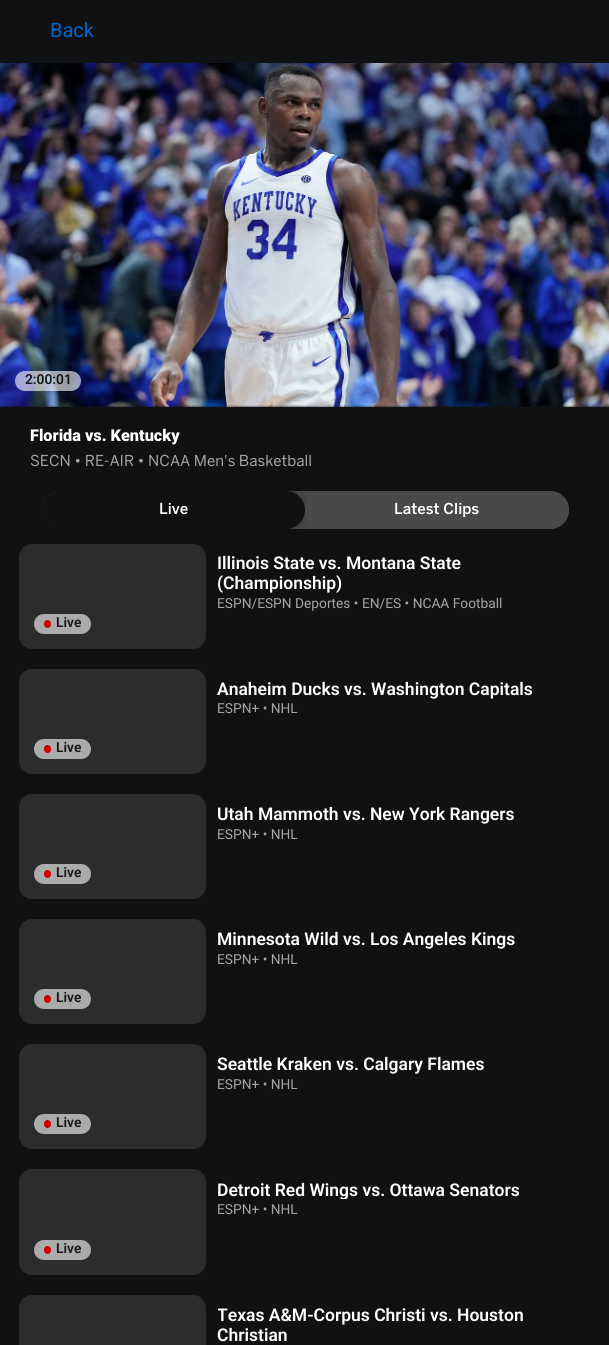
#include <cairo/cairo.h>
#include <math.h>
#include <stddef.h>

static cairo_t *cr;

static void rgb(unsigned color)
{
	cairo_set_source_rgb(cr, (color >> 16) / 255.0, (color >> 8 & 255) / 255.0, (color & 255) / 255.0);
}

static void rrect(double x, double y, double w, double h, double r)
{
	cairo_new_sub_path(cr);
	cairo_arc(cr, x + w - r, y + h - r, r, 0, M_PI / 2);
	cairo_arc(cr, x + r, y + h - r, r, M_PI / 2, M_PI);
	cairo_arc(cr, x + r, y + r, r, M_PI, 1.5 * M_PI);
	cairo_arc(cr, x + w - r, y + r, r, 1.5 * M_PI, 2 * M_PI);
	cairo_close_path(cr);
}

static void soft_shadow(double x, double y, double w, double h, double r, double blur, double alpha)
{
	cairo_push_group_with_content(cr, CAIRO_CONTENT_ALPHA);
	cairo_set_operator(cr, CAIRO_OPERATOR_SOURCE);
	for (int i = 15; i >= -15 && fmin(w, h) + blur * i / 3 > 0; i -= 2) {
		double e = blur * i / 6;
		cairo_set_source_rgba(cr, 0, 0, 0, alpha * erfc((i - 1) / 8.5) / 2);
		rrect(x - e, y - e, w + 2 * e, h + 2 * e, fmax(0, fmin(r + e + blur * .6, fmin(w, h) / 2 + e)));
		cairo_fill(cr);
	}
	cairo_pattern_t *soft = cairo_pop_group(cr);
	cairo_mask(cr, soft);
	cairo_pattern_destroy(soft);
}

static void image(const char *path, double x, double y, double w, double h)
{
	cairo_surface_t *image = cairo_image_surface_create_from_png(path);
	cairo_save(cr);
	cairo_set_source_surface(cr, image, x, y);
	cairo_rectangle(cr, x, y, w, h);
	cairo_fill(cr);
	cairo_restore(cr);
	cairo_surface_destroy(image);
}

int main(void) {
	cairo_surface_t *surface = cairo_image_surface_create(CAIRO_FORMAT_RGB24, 609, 1345);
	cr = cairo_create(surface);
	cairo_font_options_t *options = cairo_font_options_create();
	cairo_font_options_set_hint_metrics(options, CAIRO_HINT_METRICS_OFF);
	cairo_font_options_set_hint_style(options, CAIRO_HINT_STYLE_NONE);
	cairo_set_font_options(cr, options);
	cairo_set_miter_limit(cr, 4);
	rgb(0x101113);
	cairo_paint(cr);
	image("img/1.png", 0, 63, 609, 344);
	cairo_set_source_rgba(cr, 1, 1, 1, 0.6);
	rrect(15, 371, 66, 20, 10);
	cairo_fill(cr);
	rgb(0x48494a);
	rrect(41, 491, 528, 38, 19);
	cairo_fill(cr);
	rgb(0x000000);
	soft_shadow(41, 491, 264, 38, 19, 5, 0.25);
	rgb(0x101113);
	rrect(41, 491, 264, 38, 19);
	cairo_fill(cr);
	rgb(0x48494a);
	rrect(305, 491, 264, 38, 19);
	cairo_fill(cr);
	rgb(0x2b2c2d);
	rrect(19, 544, 187, 105, 13);
	cairo_fill(cr);
	rgb(0xaaabab);
	rrect(34, 614, 57, 20, 10);
	cairo_fill(cr);
	rgb(0xcc0000);
	rrect(44, 620, 7, 8, 3.5);
	cairo_fill(cr);
	rgb(0x2b2c2d);
	rrect(19, 669, 187, 105, 13);
	cairo_fill(cr);
	rgb(0xaaabab);
	rrect(34, 739, 57, 20, 10);
	cairo_fill(cr);
	rgb(0xcc0000);
	rrect(44, 745, 7, 8, 3.5);
	cairo_fill(cr);
	rgb(0x2b2c2d);
	rrect(19, 794, 187, 105, 13);
	cairo_fill(cr);
	rgb(0xaaabab);
	rrect(34, 864, 57, 20, 10);
	cairo_fill(cr);
	rgb(0xcc0000);
	rrect(44, 870, 7, 8, 3.5);
	cairo_fill(cr);
	rgb(0x2b2c2d);
	rrect(19, 919, 187, 105, 13);
	cairo_fill(cr);
	rgb(0xaaabab);
	rrect(34, 989, 57, 20, 10);
	cairo_fill(cr);
	rgb(0xcc0000);
	rrect(44, 995, 7, 8, 3.5);
	cairo_fill(cr);
	rgb(0x2b2c2d);
	rrect(19, 1044, 187, 105, 13);
	cairo_fill(cr);
	rgb(0xaaabab);
	rrect(34, 1114, 57, 20, 10);
	cairo_fill(cr);
	rgb(0xcc0000);
	rrect(44, 1120, 7, 8, 3.5);
	cairo_fill(cr);
	rgb(0x2b2c2d);
	rrect(19, 1169, 187, 106, 13);
	cairo_fill(cr);
	rgb(0xaaabab);
	rrect(34, 1240, 57, 20, 10);
	cairo_fill(cr);
	rgb(0xcc0000);
	rrect(44, 1246, 7, 8, 3.5);
	cairo_fill(cr);
	rgb(0x2b2c2d);
	rrect(19, 1295, 187, 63, 13);
	cairo_fill(cr);
	cairo_select_font_face(cr, "Roboto", CAIRO_FONT_SLANT_NORMAL, CAIRO_FONT_WEIGHT_NORMAL);
	cairo_set_font_size(cr, 20);
	rgb(0x0066cc);
	cairo_move_to(cr, 50, 37);
	cairo_show_text(cr, "Back");
	cairo_select_font_face(cr, "Roboto SemiBold", CAIRO_FONT_SLANT_NORMAL, CAIRO_FONT_WEIGHT_NORMAL);
	cairo_set_font_size(cr, 13.75);
	rgb(0x151617);
	cairo_move_to(cr, 25, 384);
	cairo_show_text(cr, "2:00:01");
	cairo_select_font_face(cr, "Roboto Black", CAIRO_FONT_SLANT_NORMAL, CAIRO_FONT_WEIGHT_NORMAL);
	cairo_set_font_size(cr, 16.25);
	rgb(0xffffff);
	cairo_move_to(cr, 30, 441);
	cairo_show_text(cr, "Florida vs. Kentucky");
	cairo_select_font_face(cr, "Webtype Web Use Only", CAIRO_FONT_SLANT_NORMAL, CAIRO_FONT_WEIGHT_NORMAL);
	cairo_set_font_size(cr, 15);
	rgb(0xa5a6a7);
	cairo_move_to(cr, 30, 466);
	cairo_show_text(cr, "SECN • RE-AIR • NCAA Men's Basketball");
	cairo_select_font_face(cr, "Webtype Web Use Only Medium", CAIRO_FONT_SLANT_NORMAL, CAIRO_FONT_WEIGHT_NORMAL);
	rgb(0xffffff);
	cairo_move_to(cr, 159, 514);
	cairo_show_text(cr, "Live");
	cairo_move_to(cr, 394, 514);
	cairo_show_text(cr, "Latest Clips");
	cairo_select_font_face(cr, "Roboto SemiBold", CAIRO_FONT_SLANT_NORMAL, CAIRO_FONT_WEIGHT_NORMAL);
	cairo_set_font_size(cr, 17.5);
	cairo_move_to(cr, 217, 569);
	cairo_show_text(cr, "Illinois State vs. Montana State");
	cairo_move_to(cr, 217, 589);
	cairo_show_text(cr, "(Championship)");
	cairo_select_font_face(cr, "Roboto", CAIRO_FONT_SLANT_NORMAL, CAIRO_FONT_WEIGHT_NORMAL);
	cairo_set_font_size(cr, 13.75);
	rgb(0xa5a6a7);
	cairo_move_to(cr, 217, 608);
	cairo_show_text(cr, "ESPN/ESPN Deportes • EN/ES • NCAA Football");
	cairo_select_font_face(cr, "Roboto SemiBold", CAIRO_FONT_SLANT_NORMAL, CAIRO_FONT_WEIGHT_NORMAL);
	rgb(0x151617);
	cairo_move_to(cr, 56, 627);
	cairo_show_text(cr, "Live");
	cairo_set_font_size(cr, 17.5);
	rgb(0xffffff);
	cairo_move_to(cr, 217, 695);
	cairo_show_text(cr, "Anaheim Ducks vs. Washington Capitals");
	cairo_select_font_face(cr, "Roboto", CAIRO_FONT_SLANT_NORMAL, CAIRO_FONT_WEIGHT_NORMAL);
	cairo_set_font_size(cr, 13.75);
	rgb(0xa5a6a7);
	cairo_move_to(cr, 217, 713);
	cairo_show_text(cr, "ESPN+ • NHL");
	cairo_select_font_face(cr, "Roboto SemiBold", CAIRO_FONT_SLANT_NORMAL, CAIRO_FONT_WEIGHT_NORMAL);
	rgb(0x151617);
	cairo_move_to(cr, 56, 752);
	cairo_show_text(cr, "Live");
	cairo_set_font_size(cr, 17.5);
	rgb(0xffffff);
	cairo_move_to(cr, 217, 820);
	cairo_show_text(cr, "Utah Mammoth vs. New York Rangers");
	cairo_select_font_face(cr, "Roboto", CAIRO_FONT_SLANT_NORMAL, CAIRO_FONT_WEIGHT_NORMAL);
	cairo_set_font_size(cr, 13.75);
	rgb(0xa5a6a7);
	cairo_move_to(cr, 217, 839);
	cairo_show_text(cr, "ESPN+ • NHL");
	cairo_select_font_face(cr, "Roboto SemiBold", CAIRO_FONT_SLANT_NORMAL, CAIRO_FONT_WEIGHT_NORMAL);
	rgb(0x151617);
	cairo_move_to(cr, 56, 877);
	cairo_show_text(cr, "Live");
	cairo_set_font_size(cr, 17.5);
	rgb(0xffffff);
	cairo_move_to(cr, 217, 945);
	cairo_show_text(cr, "Minnesota Wild vs. Los Angeles Kings");
	cairo_select_font_face(cr, "Roboto", CAIRO_FONT_SLANT_NORMAL, CAIRO_FONT_WEIGHT_NORMAL);
	cairo_set_font_size(cr, 13.75);
	rgb(0xa5a6a7);
	cairo_move_to(cr, 217, 964);
	cairo_show_text(cr, "ESPN+ • NHL");
	cairo_select_font_face(cr, "Roboto SemiBold", CAIRO_FONT_SLANT_NORMAL, CAIRO_FONT_WEIGHT_NORMAL);
	rgb(0x151617);
	cairo_move_to(cr, 56, 1002);
	cairo_show_text(cr, "Live");
	cairo_set_font_size(cr, 17.5);
	rgb(0xffffff);
	cairo_move_to(cr, 217, 1070);
	cairo_show_text(cr, "Seattle Kraken vs. Calgary Flames");
	cairo_select_font_face(cr, "Roboto", CAIRO_FONT_SLANT_NORMAL, CAIRO_FONT_WEIGHT_NORMAL);
	cairo_set_font_size(cr, 13.75);
	rgb(0xa5a6a7);
	cairo_move_to(cr, 217, 1089);
	cairo_show_text(cr, "ESPN+ • NHL");
	cairo_select_font_face(cr, "Roboto SemiBold", CAIRO_FONT_SLANT_NORMAL, CAIRO_FONT_WEIGHT_NORMAL);
	rgb(0x151617);
	cairo_move_to(cr, 56, 1127);
	cairo_show_text(cr, "Live");
	cairo_save(cr);
	cairo_rectangle(cr, 218, 1179, 302, 20);
	cairo_clip(cr);
	cairo_set_font_size(cr, 17.5);
	rgb(0xffffff);
	cairo_move_to(cr, 217, 1196);
	cairo_show_text(cr, "Detroit Red Wings vs. Ottawa Senators");
	cairo_restore(cr);
	cairo_select_font_face(cr, "Roboto", CAIRO_FONT_SLANT_NORMAL, CAIRO_FONT_WEIGHT_NORMAL);
	rgb(0xa5a6a7);
	cairo_move_to(cr, 217, 1214);
	cairo_show_text(cr, "ESPN+ • NHL");
	cairo_select_font_face(cr, "Roboto SemiBold", CAIRO_FONT_SLANT_NORMAL, CAIRO_FONT_WEIGHT_NORMAL);
	rgb(0x151617);
	cairo_move_to(cr, 56, 1253);
	cairo_show_text(cr, "Live");
	cairo_save(cr);
	cairo_rectangle(cr, 218, 1305, 361, 40);
	cairo_clip(cr);
	cairo_set_font_size(cr, 17.5);
	rgb(0xffffff);
	cairo_move_to(cr, 217, 1321);
	cairo_show_text(cr, "Texas A&M-Corpus Christi vs. Houston");
	cairo_restore(cr);
	cairo_set_font_size(cr, 17.5);
	rgb(0xffffff);
	cairo_move_to(cr, 217, 1341);
	cairo_show_text(cr, "Christian");
	cairo_surface_write_to_png(surface, "page.png");
	cairo_font_options_destroy(options);
	cairo_destroy(cr);
	cairo_surface_destroy(surface);
	return 0;
}
